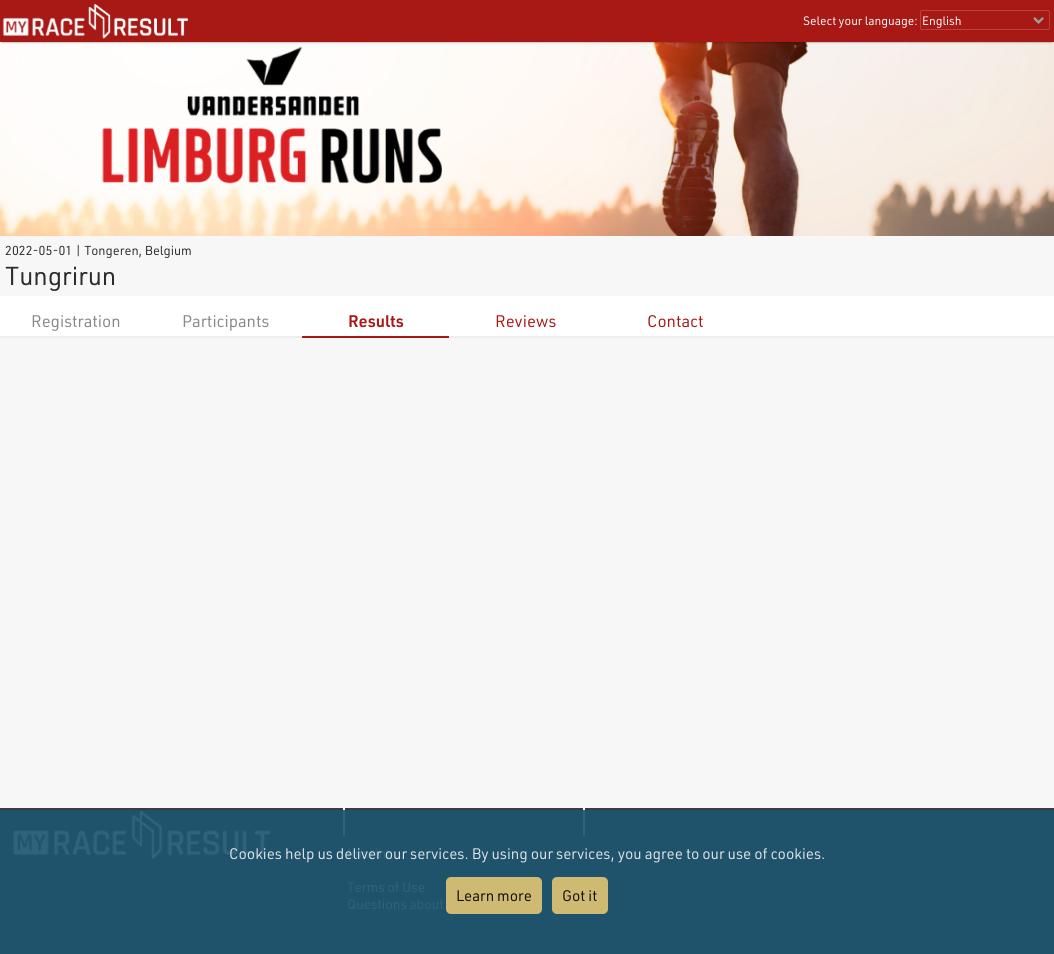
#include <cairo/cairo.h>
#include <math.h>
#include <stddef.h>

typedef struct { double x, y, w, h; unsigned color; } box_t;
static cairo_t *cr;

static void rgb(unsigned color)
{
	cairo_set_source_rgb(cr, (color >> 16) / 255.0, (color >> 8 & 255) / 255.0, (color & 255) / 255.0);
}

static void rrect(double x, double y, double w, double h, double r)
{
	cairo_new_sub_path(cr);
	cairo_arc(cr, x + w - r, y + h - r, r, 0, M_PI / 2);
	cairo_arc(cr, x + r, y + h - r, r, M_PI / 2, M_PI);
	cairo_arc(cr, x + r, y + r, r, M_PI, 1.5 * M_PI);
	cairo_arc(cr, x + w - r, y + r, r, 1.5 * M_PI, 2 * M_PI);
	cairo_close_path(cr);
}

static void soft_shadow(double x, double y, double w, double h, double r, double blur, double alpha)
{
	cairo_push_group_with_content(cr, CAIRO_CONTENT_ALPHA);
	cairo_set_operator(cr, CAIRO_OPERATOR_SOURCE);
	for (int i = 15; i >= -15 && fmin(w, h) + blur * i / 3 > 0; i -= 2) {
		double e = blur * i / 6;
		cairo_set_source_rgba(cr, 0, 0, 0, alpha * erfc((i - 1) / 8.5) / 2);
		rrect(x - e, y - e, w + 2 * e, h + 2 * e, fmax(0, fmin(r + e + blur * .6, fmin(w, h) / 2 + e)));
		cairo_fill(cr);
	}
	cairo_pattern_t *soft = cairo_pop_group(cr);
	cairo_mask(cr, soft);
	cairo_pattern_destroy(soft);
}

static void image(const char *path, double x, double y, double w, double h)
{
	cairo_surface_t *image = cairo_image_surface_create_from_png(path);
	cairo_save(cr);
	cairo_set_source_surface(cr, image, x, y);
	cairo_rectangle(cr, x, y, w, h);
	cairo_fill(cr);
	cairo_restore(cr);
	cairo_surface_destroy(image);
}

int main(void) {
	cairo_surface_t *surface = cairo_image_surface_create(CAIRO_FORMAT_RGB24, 1054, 954);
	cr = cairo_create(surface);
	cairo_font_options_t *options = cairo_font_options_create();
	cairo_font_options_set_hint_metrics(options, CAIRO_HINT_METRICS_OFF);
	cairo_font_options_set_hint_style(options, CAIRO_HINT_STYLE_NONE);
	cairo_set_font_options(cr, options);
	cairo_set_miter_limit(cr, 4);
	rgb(0xf7f7f7);
	cairo_paint(cr);
	image("img/3.png", 0, 42, 1054, 194);
	rgb(0x000000);
	soft_shadow(2, 4, 1050, 38, 0, 1, 0.52);
	rgb(0xa81815);
	cairo_rectangle(cr, 0, 0, 1054, 42);
	cairo_fill(cr);
	image("img/1.png", 2, 4, 186, 35);
	image("img/2.png", 1033, 17, 11, 7);
	rrect(920.5, 10.5, 129, 19, 1.5);
	rgb(0xb74340);
	cairo_set_line_width(cr, 1);
	cairo_stroke(cr);
	{
		static const box_t items[] = {
			{0, 296, 1054, 40, 0xffffff},
			{0, 336, 1054, 2, 0xeeeeee},
			{302, 336, 147, 2, 0xa81815},
			{0, 810, 1054, 144, 0x1f526b},
		};
		for (size_t i = 0; i < sizeof items / sizeof *items; i++) {
			rgb(items[i].color);
			cairo_rectangle(cr, items[i].x, items[i].y, items[i].w, items[i].h);
			cairo_fill(cr);
		}
	}
	cairo_set_source_rgba(cr, 0.867, 0.765, 0.455, 0.92);
	rrect(446, 877, 96, 37, 5);
	cairo_fill(cr);
	rrect(552, 877, 56, 37, 5);
	cairo_fill(cr);
	rgb(0x3c3c3b);
	cairo_rectangle(cr, 0, 808, 1054, 2);
	cairo_fill(cr);
	image("img/4.png", 13, 811, 257, 49);
	{
		static const box_t items[] = {
			{583, 808, 2, 2, 0xffffff},
			{583, 810, 2, 26, 0x2f627b},
			{343, 808, 2, 2, 0xffffff},
			{343, 810, 2, 26, 0x2f627b},
		};
		for (size_t i = 0; i < sizeof items / sizeof *items; i++) {
			rgb(items[i].color);
			cairo_rectangle(cr, items[i].x, items[i].y, items[i].w, items[i].h);
			cairo_fill(cr);
		}
	}
	cairo_select_font_face(cr, "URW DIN", CAIRO_FONT_SLANT_NORMAL, CAIRO_FONT_WEIGHT_NORMAL);
	cairo_set_font_size(cr, 12);
	rgb(0xffffff);
	cairo_move_to(cr, 803, 25);
	cairo_show_text(cr, "Select your language:");
	cairo_move_to(cr, 922, 25);
	cairo_show_text(cr, "English");
	cairo_set_font_size(cr, 12.75);
	rgb(0x2c2c2c);
	cairo_move_to(cr, 5, 255);
	cairo_show_text(cr, "2022-05-01 | Tongeren, Belgium");
	cairo_set_font_size(cr, 25.5);
	cairo_move_to(cr, 5, 285);
	cairo_show_text(cr, "Tungrirun");
	cairo_set_font_size(cr, 16.5);
	rgb(0x888888);
	cairo_move_to(cr, 31, 327);
	cairo_show_text(cr, "Registration");
	cairo_move_to(cr, 182, 327);
	cairo_show_text(cr, "Participants");
	cairo_select_font_face(cr, "URW DIN SemiBold", CAIRO_FONT_SLANT_NORMAL, CAIRO_FONT_WEIGHT_NORMAL);
	rgb(0xa81815);
	cairo_move_to(cr, 348, 327);
	cairo_show_text(cr, "Results");
	cairo_select_font_face(cr, "URW DIN", CAIRO_FONT_SLANT_NORMAL, CAIRO_FONT_WEIGHT_NORMAL);
	cairo_move_to(cr, 495, 327);
	cairo_show_text(cr, "Reviews");
	cairo_move_to(cr, 647, 327);
	cairo_show_text(cr, "Contact");
	cairo_set_font_size(cr, 15);
	rgb(0x100f09);
	cairo_move_to(cr, 456, 901);
	cairo_show_text(cr, "Learn more");
	cairo_move_to(cr, 562, 901);
	cairo_show_text(cr, "Got it");
	cairo_set_font_size(cr, 13.5);
	rgb(0x2f627b);
	cairo_move_to(cr, 347, 858);
	cairo_show_text(cr, "Imprint");
	cairo_set_font_size(cr, 15);
	rgb(0xdee2e4);
	cairo_move_to(cr, 229, 859);
	cairo_show_text(cr, "Cookies help us deliver our services. By using our services, you agree to our use of cookies.");
	cairo_set_font_size(cr, 13.5);
	rgb(0x2f627b);
	cairo_move_to(cr, 347, 892);
	cairo_show_text(cr, "Terms of Use");
	cairo_move_to(cr, 347, 909);
	cairo_show_text(cr, "Questions about");
	cairo_surface_write_to_png(surface, "page.png");
	cairo_font_options_destroy(options);
	cairo_destroy(cr);
	cairo_surface_destroy(surface);
	return 0;
}
